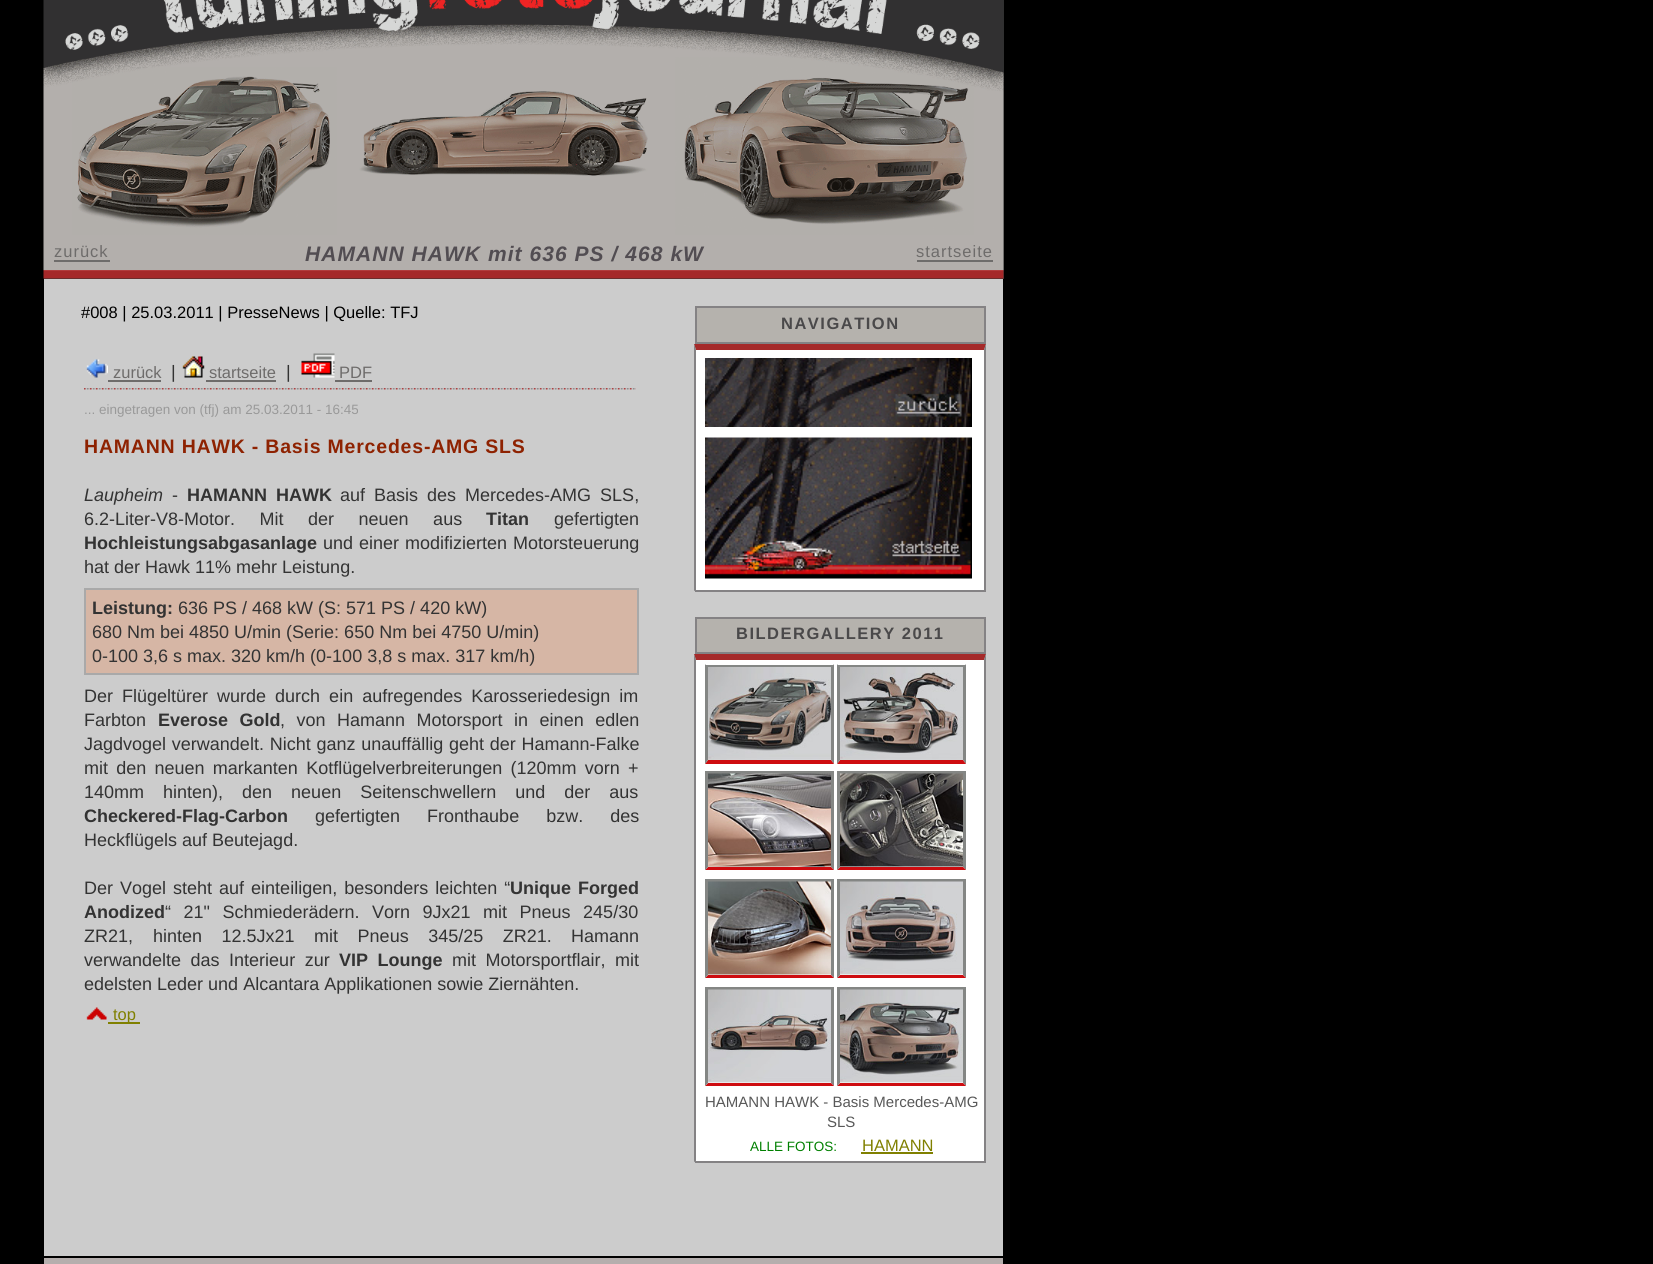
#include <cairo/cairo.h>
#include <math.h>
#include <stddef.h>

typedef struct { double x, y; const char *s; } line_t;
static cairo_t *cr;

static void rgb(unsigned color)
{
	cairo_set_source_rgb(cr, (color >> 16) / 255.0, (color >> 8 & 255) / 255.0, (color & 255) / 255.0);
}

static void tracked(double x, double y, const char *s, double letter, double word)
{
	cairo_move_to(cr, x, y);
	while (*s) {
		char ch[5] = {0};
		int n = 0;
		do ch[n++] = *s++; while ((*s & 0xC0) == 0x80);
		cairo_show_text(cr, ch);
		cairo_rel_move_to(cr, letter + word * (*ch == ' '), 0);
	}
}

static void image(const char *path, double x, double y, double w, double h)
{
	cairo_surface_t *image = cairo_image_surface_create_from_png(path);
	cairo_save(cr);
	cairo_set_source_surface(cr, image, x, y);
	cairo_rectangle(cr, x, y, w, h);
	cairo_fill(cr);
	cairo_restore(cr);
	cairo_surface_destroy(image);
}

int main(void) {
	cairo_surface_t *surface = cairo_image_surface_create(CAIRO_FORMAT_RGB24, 1653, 1264);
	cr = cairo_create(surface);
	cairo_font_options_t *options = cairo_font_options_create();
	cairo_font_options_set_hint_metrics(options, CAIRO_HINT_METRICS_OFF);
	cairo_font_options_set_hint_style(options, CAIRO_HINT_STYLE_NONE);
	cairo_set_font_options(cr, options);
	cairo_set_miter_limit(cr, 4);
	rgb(0x000000);
	cairo_paint(cr);
	rgb(0xcccccc);
	cairo_rectangle(cr, 44, 279, 959, 977);
	cairo_fill(cr);
	rgb(0x313031);
	cairo_rectangle(cr, 44, 0, 960, 279);
	cairo_fill(cr);
	image("img/1.png", 43, 0, 961, 279);
	rgb(0x6e6c6b);
	cairo_rectangle(cr, 54, 260, 56, 2);
	cairo_fill(cr);
	cairo_rectangle(cr, 917, 260, 76, 2);
	cairo_fill(cr);
	image("img/2.png", 86, 359, 22, 19);
	cairo_rectangle(cr, 108, 380, 53, 2);
	cairo_fill(cr);
	image("img/3.png", 182, 356, 23, 22);
	cairo_rectangle(cr, 206, 380, 70, 2);
	cairo_fill(cr);
	image("img/4.png", 301, 353, 34, 25);
	cairo_rectangle(cr, 335, 380, 37, 2);
	cairo_fill(cr);
	image("img/5.png", 84, 388, 552, 2);
	rgb(0xd6b6a5);
	cairo_rectangle(cr, 85, 589, 553, 85);
	cairo_fill_preserve(cr);
	rgb(0xa9a9a9);
	cairo_stroke(cr);
	image("img/6.png", 86, 1007, 21, 13);
	rgb(0x808000);
	cairo_rectangle(cr, 108, 1022, 32, 2);
	cairo_fill(cr);
	rgb(0xb5b2ad);
	cairo_rectangle(cr, 696, 307, 289, 36);
	cairo_fill_preserve(cr);
	rgb(0x848284);
	cairo_stroke(cr);
	rgb(0xffffff);
	cairo_rectangle(cr, 696, 350, 288, 240);
	cairo_fill(cr);
	rgb(0xa52a2a);
	cairo_new_path(cr);
	cairo_move_to(cr, 694, 344);
	cairo_line_to(cr, 986, 344);
	cairo_line_to(cr, 984, 350);
	cairo_line_to(cr, 696, 350);
	cairo_close_path(cr);
	cairo_fill(cr);
	rgb(0x848284);
	cairo_new_path(cr);
	cairo_move_to(cr, 986, 344);
	cairo_line_to(cr, 986, 591);
	cairo_line_to(cr, 984, 590);
	cairo_line_to(cr, 984, 350);
	cairo_close_path(cr);
	cairo_fill(cr);
	cairo_rectangle(cr, 695, 590, 291, 2);
	cairo_fill(cr);
	cairo_new_path(cr);
	cairo_move_to(cr, 694, 591);
	cairo_line_to(cr, 694, 344);
	cairo_line_to(cr, 696, 350);
	cairo_line_to(cr, 696, 590);
	cairo_close_path(cr);
	cairo_fill(cr);
	image("img/7.png", 705, 358, 267, 69);
	image("img/8.png", 705, 437, 267, 142);
	rgb(0xb5b2ad);
	cairo_rectangle(cr, 696, 618, 289, 35);
	cairo_fill_preserve(cr);
	rgb(0x848284);
	cairo_stroke(cr);
	rgb(0xffffff);
	cairo_rectangle(cr, 696, 660, 288, 501);
	cairo_fill(cr);
	rgb(0xa52a2a);
	cairo_new_path(cr);
	cairo_move_to(cr, 694, 654);
	cairo_line_to(cr, 986, 654);
	cairo_line_to(cr, 984, 660);
	cairo_line_to(cr, 696, 660);
	cairo_close_path(cr);
	cairo_fill(cr);
	rgb(0x848284);
	cairo_new_path(cr);
	cairo_move_to(cr, 986, 654);
	cairo_line_to(cr, 986, 1162);
	cairo_line_to(cr, 984, 1161);
	cairo_line_to(cr, 984, 660);
	cairo_close_path(cr);
	cairo_fill(cr);
	cairo_rectangle(cr, 695, 1161, 291, 2);
	cairo_fill(cr);
	cairo_new_path(cr);
	cairo_move_to(cr, 694, 1162);
	cairo_line_to(cr, 694, 654);
	cairo_line_to(cr, 696, 660);
	cairo_line_to(cr, 696, 1161);
	cairo_close_path(cr);
	cairo_fill(cr);
	rgb(0x848684);
	cairo_rectangle(cr, 705, 665, 129, 3);
	cairo_fill(cr);
	cairo_new_path(cr);
	cairo_move_to(cr, 834, 664);
	cairo_line_to(cr, 834, 764);
	cairo_line_to(cr, 831, 760);
	cairo_line_to(cr, 831, 668);
	cairo_close_path(cr);
	cairo_fill(cr);
	rgb(0xce0c10);
	cairo_new_path(cr);
	cairo_move_to(cr, 834, 764);
	cairo_line_to(cr, 705, 764);
	cairo_line_to(cr, 708, 760);
	cairo_line_to(cr, 831, 760);
	cairo_close_path(cr);
	cairo_fill(cr);
	rgb(0x848684);
	cairo_new_path(cr);
	cairo_move_to(cr, 705, 764);
	cairo_line_to(cr, 705, 664);
	cairo_line_to(cr, 708, 668);
	cairo_line_to(cr, 708, 760);
	cairo_close_path(cr);
	cairo_fill(cr);
	image("img/9.png", 708, 667, 123, 93);
	cairo_rectangle(cr, 837, 665, 129, 3);
	cairo_fill(cr);
	cairo_new_path(cr);
	cairo_move_to(cr, 966, 664);
	cairo_line_to(cr, 966, 764);
	cairo_line_to(cr, 963, 760);
	cairo_line_to(cr, 963, 668);
	cairo_close_path(cr);
	cairo_fill(cr);
	rgb(0xce0c10);
	cairo_new_path(cr);
	cairo_move_to(cr, 966, 764);
	cairo_line_to(cr, 837, 764);
	cairo_line_to(cr, 840, 760);
	cairo_line_to(cr, 963, 760);
	cairo_close_path(cr);
	cairo_fill(cr);
	rgb(0x848684);
	cairo_new_path(cr);
	cairo_move_to(cr, 837, 764);
	cairo_line_to(cr, 837, 664);
	cairo_line_to(cr, 840, 668);
	cairo_line_to(cr, 840, 760);
	cairo_close_path(cr);
	cairo_fill(cr);
	image("img/10.png", 840, 667, 123, 93);
	cairo_rectangle(cr, 705, 771, 129, 3);
	cairo_fill(cr);
	cairo_new_path(cr);
	cairo_move_to(cr, 834, 771);
	cairo_line_to(cr, 834, 870);
	cairo_line_to(cr, 831, 867);
	cairo_line_to(cr, 831, 774);
	cairo_close_path(cr);
	cairo_fill(cr);
	rgb(0xce0c10);
	cairo_new_path(cr);
	cairo_move_to(cr, 834, 870);
	cairo_line_to(cr, 705, 870);
	cairo_line_to(cr, 708, 867);
	cairo_line_to(cr, 831, 867);
	cairo_close_path(cr);
	cairo_fill(cr);
	rgb(0x848684);
	cairo_new_path(cr);
	cairo_move_to(cr, 705, 870);
	cairo_line_to(cr, 705, 771);
	cairo_line_to(cr, 708, 774);
	cairo_line_to(cr, 708, 867);
	cairo_close_path(cr);
	cairo_fill(cr);
	image("img/11.png", 708, 773, 123, 94);
	cairo_rectangle(cr, 837, 771, 129, 3);
	cairo_fill(cr);
	cairo_new_path(cr);
	cairo_move_to(cr, 966, 771);
	cairo_line_to(cr, 966, 870);
	cairo_line_to(cr, 963, 867);
	cairo_line_to(cr, 963, 774);
	cairo_close_path(cr);
	cairo_fill(cr);
	rgb(0xce0c10);
	cairo_new_path(cr);
	cairo_move_to(cr, 966, 870);
	cairo_line_to(cr, 837, 870);
	cairo_line_to(cr, 840, 867);
	cairo_line_to(cr, 963, 867);
	cairo_close_path(cr);
	cairo_fill(cr);
	rgb(0x848684);
	cairo_new_path(cr);
	cairo_move_to(cr, 837, 870);
	cairo_line_to(cr, 837, 771);
	cairo_line_to(cr, 840, 774);
	cairo_line_to(cr, 840, 867);
	cairo_close_path(cr);
	cairo_fill(cr);
	image("img/12.png", 840, 773, 123, 94);
	cairo_rectangle(cr, 705, 879, 129, 3);
	cairo_fill(cr);
	cairo_new_path(cr);
	cairo_move_to(cr, 834, 879);
	cairo_line_to(cr, 834, 978);
	cairo_line_to(cr, 831, 975);
	cairo_line_to(cr, 831, 882);
	cairo_close_path(cr);
	cairo_fill(cr);
	rgb(0xce0c10);
	cairo_new_path(cr);
	cairo_move_to(cr, 834, 978);
	cairo_line_to(cr, 705, 978);
	cairo_line_to(cr, 708, 975);
	cairo_line_to(cr, 831, 975);
	cairo_close_path(cr);
	cairo_fill(cr);
	rgb(0x848684);
	cairo_new_path(cr);
	cairo_move_to(cr, 705, 978);
	cairo_line_to(cr, 705, 879);
	cairo_line_to(cr, 708, 882);
	cairo_line_to(cr, 708, 975);
	cairo_close_path(cr);
	cairo_fill(cr);
	image("img/13.png", 708, 881, 123, 94);
	cairo_rectangle(cr, 837, 879, 129, 3);
	cairo_fill(cr);
	cairo_new_path(cr);
	cairo_move_to(cr, 966, 879);
	cairo_line_to(cr, 966, 978);
	cairo_line_to(cr, 963, 975);
	cairo_line_to(cr, 963, 882);
	cairo_close_path(cr);
	cairo_fill(cr);
	rgb(0xce0c10);
	cairo_new_path(cr);
	cairo_move_to(cr, 966, 978);
	cairo_line_to(cr, 837, 978);
	cairo_line_to(cr, 840, 975);
	cairo_line_to(cr, 963, 975);
	cairo_close_path(cr);
	cairo_fill(cr);
	rgb(0x848684);
	cairo_new_path(cr);
	cairo_move_to(cr, 837, 978);
	cairo_line_to(cr, 837, 879);
	cairo_line_to(cr, 840, 882);
	cairo_line_to(cr, 840, 975);
	cairo_close_path(cr);
	cairo_fill(cr);
	image("img/14.png", 840, 881, 123, 94);
	cairo_rectangle(cr, 705, 987, 129, 3);
	cairo_fill(cr);
	cairo_new_path(cr);
	cairo_move_to(cr, 834, 987);
	cairo_line_to(cr, 834, 1086);
	cairo_line_to(cr, 831, 1083);
	cairo_line_to(cr, 831, 990);
	cairo_close_path(cr);
	cairo_fill(cr);
	rgb(0xce0c10);
	cairo_new_path(cr);
	cairo_move_to(cr, 834, 1086);
	cairo_line_to(cr, 705, 1086);
	cairo_line_to(cr, 708, 1083);
	cairo_line_to(cr, 831, 1083);
	cairo_close_path(cr);
	cairo_fill(cr);
	rgb(0x848684);
	cairo_new_path(cr);
	cairo_move_to(cr, 705, 1086);
	cairo_line_to(cr, 705, 987);
	cairo_line_to(cr, 708, 990);
	cairo_line_to(cr, 708, 1083);
	cairo_close_path(cr);
	cairo_fill(cr);
	image("img/15.png", 708, 989, 123, 94);
	cairo_rectangle(cr, 837, 987, 129, 3);
	cairo_fill(cr);
	cairo_new_path(cr);
	cairo_move_to(cr, 966, 987);
	cairo_line_to(cr, 966, 1086);
	cairo_line_to(cr, 963, 1083);
	cairo_line_to(cr, 963, 990);
	cairo_close_path(cr);
	cairo_fill(cr);
	rgb(0xce0c10);
	cairo_new_path(cr);
	cairo_move_to(cr, 966, 1086);
	cairo_line_to(cr, 837, 1086);
	cairo_line_to(cr, 840, 1083);
	cairo_line_to(cr, 963, 1083);
	cairo_close_path(cr);
	cairo_fill(cr);
	rgb(0x848684);
	cairo_new_path(cr);
	cairo_move_to(cr, 837, 1086);
	cairo_line_to(cr, 837, 987);
	cairo_line_to(cr, 840, 990);
	cairo_line_to(cr, 840, 1083);
	cairo_close_path(cr);
	cairo_fill(cr);
	image("img/16.png", 840, 989, 123, 94);
	rgb(0x808000);
	cairo_rectangle(cr, 861, 1152, 72, 2);
	cairo_fill(cr);
	rgb(0xb5aead);
	cairo_rectangle(cr, 43, 1257, 961, 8);
	cairo_fill_preserve(cr);
	rgb(0x000000);
	cairo_stroke(cr);
	cairo_select_font_face(cr, "Liberation Sans", CAIRO_FONT_SLANT_NORMAL, CAIRO_FONT_WEIGHT_NORMAL);
	cairo_set_font_size(cr, 16.5);
	rgb(0x6e6c6b);
	tracked(54, 257, "zurück", 1, 0);
	cairo_select_font_face(cr, "Liberation Sans", CAIRO_FONT_SLANT_ITALIC, CAIRO_FONT_WEIGHT_BOLD);
	cairo_set_font_size(cr, 21);
	rgb(0x524d52);
	tracked(305, 261, "HAMANN HAWK mit 636 PS / 468 kW", 1.05, 0);
	cairo_select_font_face(cr, "Liberation Sans", CAIRO_FONT_SLANT_NORMAL, CAIRO_FONT_WEIGHT_NORMAL);
	cairo_set_font_size(cr, 16.5);
	rgb(0x6e6c6b);
	tracked(916, 257, "startseite", 1, 0);
	rgb(0x000000);
	cairo_move_to(cr, 81, 318);
	cairo_show_text(cr, "#008 | 25.03.2011 | PresseNews | Quelle: TFJ");
	rgb(0x6e6c6b);
	cairo_move_to(cr, 113, 378);
	cairo_show_text(cr, "zurück");
	cairo_set_font_size(cr, 18);
	rgb(0x333333);
	cairo_move_to(cr, 171, 378);
	cairo_show_text(cr, "|");
	cairo_set_font_size(cr, 16.5);
	rgb(0x6e6c6b);
	cairo_move_to(cr, 209, 378);
	cairo_show_text(cr, "startseite");
	cairo_set_font_size(cr, 18);
	rgb(0x333333);
	cairo_move_to(cr, 286, 378);
	cairo_show_text(cr, "|");
	cairo_set_font_size(cr, 16.5);
	rgb(0x6e6c6b);
	cairo_move_to(cr, 339, 378);
	cairo_show_text(cr, "PDF");
	cairo_set_font_size(cr, 13.5);
	rgb(0x999999);
	cairo_move_to(cr, 84, 414);
	cairo_show_text(cr, "... eingetragen von (tfj) am 25.03.2011 - 16:45");
	cairo_select_font_face(cr, "Liberation Sans", CAIRO_FONT_SLANT_NORMAL, CAIRO_FONT_WEIGHT_BOLD);
	cairo_set_font_size(cr, 19.5);
	rgb(0x8e2201);
	tracked(84, 453, "HAMANN HAWK - Basis Mercedes-AMG SLS", 0.8, 0);
	cairo_select_font_face(cr, "Liberation Sans", CAIRO_FONT_SLANT_ITALIC, CAIRO_FONT_WEIGHT_NORMAL);
	cairo_set_font_size(cr, 18);
	rgb(0x333333);
	cairo_move_to(cr, 84, 501);
	cairo_show_text(cr, "Laupheim");
	cairo_select_font_face(cr, "Liberation Sans", CAIRO_FONT_SLANT_NORMAL, CAIRO_FONT_WEIGHT_NORMAL);
	cairo_move_to(cr, 172, 501);
	cairo_show_text(cr, "-");
	cairo_select_font_face(cr, "Liberation Sans", CAIRO_FONT_SLANT_NORMAL, CAIRO_FONT_WEIGHT_BOLD);
	tracked(187, 501, "HAMANN HAWK", 0, 4);
	cairo_select_font_face(cr, "Liberation Sans", CAIRO_FONT_SLANT_NORMAL, CAIRO_FONT_WEIGHT_NORMAL);
	tracked(340, 501, "auf Basis des Mercedes-AMG SLS,", 0, 4);
	tracked(84, 525, "6.2-Liter-V8-Motor. Mit der neuen aus", 0, 19.5);
	cairo_select_font_face(cr, "Liberation Sans", CAIRO_FONT_SLANT_NORMAL, CAIRO_FONT_WEIGHT_BOLD);
	cairo_move_to(cr, 486, 525);
	cairo_show_text(cr, "Titan");
	cairo_select_font_face(cr, "Liberation Sans", CAIRO_FONT_SLANT_NORMAL, CAIRO_FONT_WEIGHT_NORMAL);
	cairo_move_to(cr, 554, 525);
	cairo_show_text(cr, "gefertigten");
	cairo_select_font_face(cr, "Liberation Sans", CAIRO_FONT_SLANT_NORMAL, CAIRO_FONT_WEIGHT_BOLD);
	cairo_move_to(cr, 84, 549);
	cairo_show_text(cr, "Hochleistungsabgasanlage");
	cairo_select_font_face(cr, "Liberation Sans", CAIRO_FONT_SLANT_NORMAL, CAIRO_FONT_WEIGHT_NORMAL);
	tracked(323, 549, "und einer modifizierten Motorsteuerung", 0, 1);
	cairo_move_to(cr, 84, 573);
	cairo_show_text(cr, "hat der Hawk 11% mehr Leistung.");
	cairo_select_font_face(cr, "Liberation Sans", CAIRO_FONT_SLANT_NORMAL, CAIRO_FONT_WEIGHT_BOLD);
	cairo_move_to(cr, 92, 614);
	cairo_show_text(cr, "Leistung:");
	cairo_select_font_face(cr, "Liberation Sans", CAIRO_FONT_SLANT_NORMAL, CAIRO_FONT_WEIGHT_NORMAL);
	{
		static const line_t items[] = {
			{178, 614, "636 PS / 468 kW (S: 571 PS / 420 kW)"},
			{92, 638, "680 Nm bei 4850 U/min (Serie: 650 Nm bei 4750 U/min)"},
			{92, 662, "0-100 3,6 s max. 320 km/h (0-100 3,8 s max. 317 km/h)"},
		};
		for (size_t i = 0; i < sizeof items / sizeof *items; i++) {
			cairo_move_to(cr, items[i].x, items[i].y);
			cairo_show_text(cr, items[i].s);
		}
	}
	tracked(84, 702, "Der Flügeltürer wurde durch ein aufregendes Karosseriedesign im", 0, 4);
	cairo_move_to(cr, 84, 726);
	cairo_show_text(cr, "Farbton");
	cairo_select_font_face(cr, "Liberation Sans", CAIRO_FONT_SLANT_NORMAL, CAIRO_FONT_WEIGHT_BOLD);
	tracked(158, 726, "Everose Gold", 0, 6.5);
	cairo_select_font_face(cr, "Liberation Sans", CAIRO_FONT_SLANT_NORMAL, CAIRO_FONT_WEIGHT_NORMAL);
	tracked(280, 726, ", von Hamann Motorsport in einen edlen", 0, 6.5);
	tracked(84, 750, "Jagdvogel verwandelt. Nicht ganz unauffällig geht der Hamann-Falke", 0, 0.75);
	tracked(84, 774, "mit den neuen markanten Kotflügelverbreiterungen (120mm vorn +", 0, 3.25);
	tracked(84, 798, "140mm hinten), den neuen Seitenschwellern und der aus", 0, 14);
	cairo_select_font_face(cr, "Liberation Sans", CAIRO_FONT_SLANT_NORMAL, CAIRO_FONT_WEIGHT_BOLD);
	cairo_move_to(cr, 84, 822);
	cairo_show_text(cr, "Checkered-Flag-Carbon");
	cairo_select_font_face(cr, "Liberation Sans", CAIRO_FONT_SLANT_NORMAL, CAIRO_FONT_WEIGHT_NORMAL);
	tracked(315, 822, "gefertigten Fronthaube bzw. des", 0, 22);
	cairo_move_to(cr, 84, 846);
	cairo_show_text(cr, "Heckflügels auf Beutejagd.");
	tracked(84, 894, "Der Vogel steht auf einteiligen, besonders leichten “", 0, 2);
	cairo_select_font_face(cr, "Liberation Sans", CAIRO_FONT_SLANT_NORMAL, CAIRO_FONT_WEIGHT_BOLD);
	tracked(510, 894, "Unique Forged", 0, 2);
	cairo_move_to(cr, 84, 918);
	cairo_show_text(cr, "Anodized");
	cairo_select_font_face(cr, "Liberation Sans", CAIRO_FONT_SLANT_NORMAL, CAIRO_FONT_WEIGHT_NORMAL);
	tracked(165, 918, "“ 21\" Schmiederädern.", 0, 7.5);
	tracked(372, 918, "Vorn 9Jx21 mit Pneus 245/30", 0, 7.5);
	cairo_move_to(cr, 84, 942);
	cairo_show_text(cr, "ZR21,");
	tracked(153, 942, "hinten 12.5Jx21 mit Pneus 345/25 ZR21.", 0, 14.5);
	cairo_move_to(cr, 571, 942);
	cairo_show_text(cr, "Hamann");
	tracked(84, 966, "verwandelte das Interieur zur", 0, 4.5);
	cairo_select_font_face(cr, "Liberation Sans", CAIRO_FONT_SLANT_NORMAL, CAIRO_FONT_WEIGHT_BOLD);
	tracked(339, 966, "VIP Lounge", 0, 4.5);
	cairo_select_font_face(cr, "Liberation Sans", CAIRO_FONT_SLANT_NORMAL, CAIRO_FONT_WEIGHT_NORMAL);
	tracked(452, 966, "mit Motorsportflair,", 0, 4.5);
	cairo_move_to(cr, 615, 966);
	cairo_show_text(cr, "mit");
	cairo_move_to(cr, 84, 990);
	cairo_show_text(cr, "edelsten Leder und Alcantara Applikationen sowie Ziernähten.");
	cairo_set_font_size(cr, 16.5);
	rgb(0x808000);
	cairo_move_to(cr, 113, 1020);
	cairo_show_text(cr, "top");
	cairo_select_font_face(cr, "Liberation Sans", CAIRO_FONT_SLANT_NORMAL, CAIRO_FONT_WEIGHT_BOLD);
	rgb(0x4a494a);
	tracked(781, 329, "NAVIGATION", 1.5, 0);
	tracked(736, 639, "BILDERGALLERY 2011", 1.5, 0);
	cairo_select_font_face(cr, "Liberation Sans", CAIRO_FONT_SLANT_NORMAL, CAIRO_FONT_WEIGHT_NORMAL);
	cairo_set_font_size(cr, 15);
	rgb(0x585858);
	cairo_move_to(cr, 705, 1107);
	cairo_show_text(cr, "HAMANN HAWK - Basis Mercedes-AMG");
	cairo_move_to(cr, 827, 1127);
	cairo_show_text(cr, "SLS");
	cairo_set_font_size(cr, 13.5);
	rgb(0x008000);
	cairo_move_to(cr, 750, 1151);
	cairo_show_text(cr, "ALLE FOTOS:");
	cairo_set_font_size(cr, 16.5);
	rgb(0x808000);
	cairo_move_to(cr, 862, 1151);
	cairo_show_text(cr, "HAMANN");
	cairo_surface_write_to_png(surface, "page.png");
	cairo_font_options_destroy(options);
	cairo_destroy(cr);
	cairo_surface_destroy(surface);
	return 0;
}
